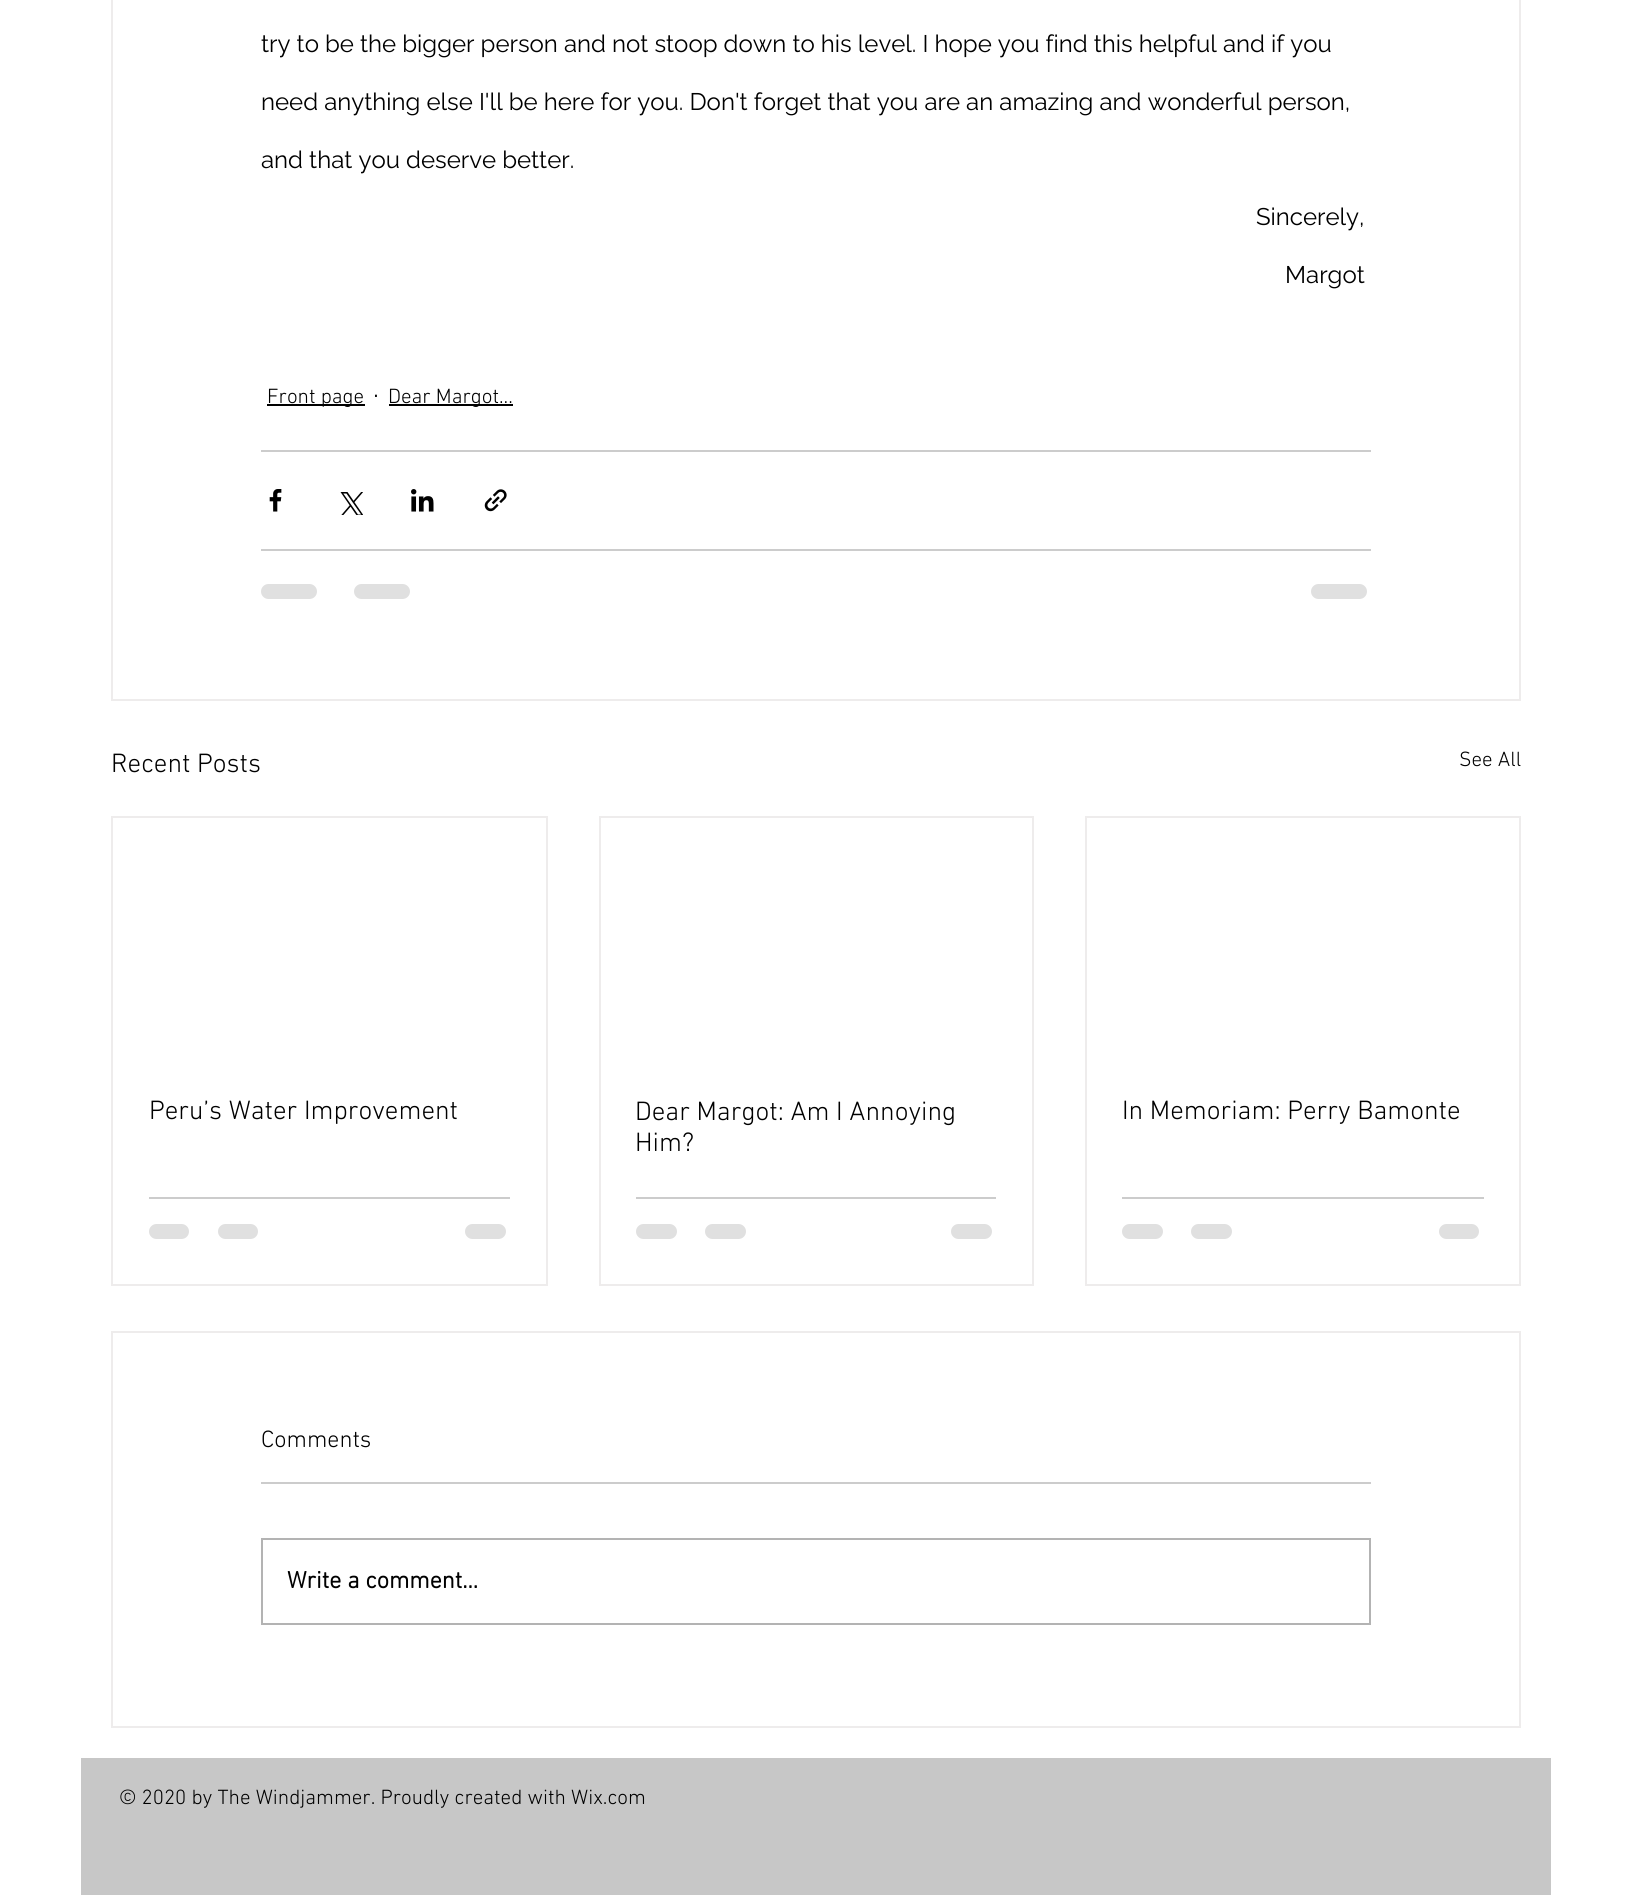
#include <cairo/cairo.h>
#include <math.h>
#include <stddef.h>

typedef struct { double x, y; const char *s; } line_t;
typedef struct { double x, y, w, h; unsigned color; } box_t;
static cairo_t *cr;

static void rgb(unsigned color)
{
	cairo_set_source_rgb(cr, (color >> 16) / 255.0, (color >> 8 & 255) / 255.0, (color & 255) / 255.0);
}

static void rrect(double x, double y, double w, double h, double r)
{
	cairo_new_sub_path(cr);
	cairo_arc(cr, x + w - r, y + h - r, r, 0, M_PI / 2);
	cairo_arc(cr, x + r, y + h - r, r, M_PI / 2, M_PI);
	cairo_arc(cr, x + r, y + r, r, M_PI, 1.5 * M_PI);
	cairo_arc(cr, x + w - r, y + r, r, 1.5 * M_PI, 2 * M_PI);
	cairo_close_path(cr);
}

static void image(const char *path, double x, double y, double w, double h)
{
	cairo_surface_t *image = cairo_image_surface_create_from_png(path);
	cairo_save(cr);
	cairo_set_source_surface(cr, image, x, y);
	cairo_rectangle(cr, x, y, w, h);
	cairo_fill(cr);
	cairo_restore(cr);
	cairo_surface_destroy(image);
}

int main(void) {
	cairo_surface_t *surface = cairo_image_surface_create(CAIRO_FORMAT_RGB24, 1631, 1895);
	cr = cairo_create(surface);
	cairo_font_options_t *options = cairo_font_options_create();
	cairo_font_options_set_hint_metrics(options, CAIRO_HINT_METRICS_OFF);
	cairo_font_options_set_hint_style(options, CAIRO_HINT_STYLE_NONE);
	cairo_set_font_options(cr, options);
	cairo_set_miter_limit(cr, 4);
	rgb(0xffffff);
	cairo_paint(cr);
	cairo_rectangle(cr, 112, -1, 1408, 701);
	rgb(0xeeecec);
	cairo_stroke(cr);
	{
		static const box_t items[] = {
			{267, 404, 98, 2, 0x000000},
			{389, 404, 124, 2, 0x000000},
			{261, 450, 1110, 2, 0xcccccc},
		};
		for (size_t i = 0; i < sizeof items / sizeof *items; i++) {
			rgb(items[i].color);
			cairo_rectangle(cr, items[i].x, items[i].y, items[i].w, items[i].h);
			cairo_fill(cr);
		}
	}
	image("img/1.png", 269, 489, 13, 23);
	image("img/2.png", 340, 492, 23, 23);
	image("img/3.png", 411, 489, 23, 23);
	image("img/4.png", 484, 489, 23, 23);
	cairo_rectangle(cr, 261, 549, 1110, 2);
	cairo_fill(cr);
	rgb(0xe0e0e0);
	rrect(261, 584, 56, 15, 7.5);
	cairo_fill(cr);
	rrect(354, 584, 56, 15, 7.5);
	cairo_fill(cr);
	rrect(1311, 584, 56, 15, 7.5);
	cairo_fill(cr);
	cairo_rectangle(cr, 112, 817, 435, 468);
	rgb(0xeeecec);
	cairo_stroke(cr);
	rgb(0xcccccc);
	cairo_rectangle(cr, 149, 1197, 361, 2);
	cairo_fill(cr);
	rgb(0xe0e0e0);
	rrect(149, 1224, 40, 15, 7.5);
	cairo_fill(cr);
	rrect(218, 1224, 40, 15, 7.5);
	cairo_fill(cr);
	rrect(465, 1224, 41, 15, 7.5);
	cairo_fill(cr);
	cairo_rectangle(cr, 600, 817, 433, 468);
	rgb(0xeeecec);
	cairo_stroke(cr);
	rgb(0xcccccc);
	cairo_rectangle(cr, 636, 1197, 360, 2);
	cairo_fill(cr);
	rgb(0xe0e0e0);
	rrect(636, 1224, 41, 15, 7.5);
	cairo_fill(cr);
	rrect(705, 1224, 41, 15, 7.5);
	cairo_fill(cr);
	rrect(951, 1224, 41, 15, 7.5);
	cairo_fill(cr);
	cairo_rectangle(cr, 1086, 817, 434, 468);
	rgb(0xeeecec);
	cairo_stroke(cr);
	rgb(0xcccccc);
	cairo_rectangle(cr, 1122, 1197, 362, 2);
	cairo_fill(cr);
	rgb(0xe0e0e0);
	rrect(1122, 1224, 41, 15, 7.5);
	cairo_fill(cr);
	rrect(1191, 1224, 41, 15, 7.5);
	cairo_fill(cr);
	rrect(1439, 1224, 40, 15, 7.5);
	cairo_fill(cr);
	cairo_rectangle(cr, 112, 1332, 1408, 395);
	rgb(0xeeecec);
	cairo_stroke(cr);
	rgb(0xcccccc);
	cairo_rectangle(cr, 261, 1482, 1110, 2);
	cairo_fill(cr);
	cairo_rectangle(cr, 262, 1539, 1108, 85);
	rgb(0xb3b3b3);
	cairo_stroke(cr);
	rgb(0xc7c7c7);
	cairo_rectangle(cr, 81, 1758, 1470, 137);
	cairo_fill(cr);
	cairo_select_font_face(cr, "Raleway", CAIRO_FONT_SLANT_NORMAL, CAIRO_FONT_WEIGHT_NORMAL);
	cairo_set_font_size(cr, 24);
	rgb(0x000000);
	{
		static const line_t items[] = {
			{261, 52, "try to be the bigger person and not stoop down to his level. I hope you find this helpful and if you"},
			{261, 110, "need anything else I'll be here for you. Don't forget that you are an amazing and wonderful person,"},
			{261, 168, "and that you deserve better."},
			{1256, 225, "Sincerely,"},
			{1285, 283, "Margot"},
		};
		for (size_t i = 0; i < sizeof items / sizeof *items; i++) {
			cairo_move_to(cr, items[i].x, items[i].y);
			cairo_show_text(cr, items[i].s);
		}
	}
	cairo_select_font_face(cr, "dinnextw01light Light", CAIRO_FONT_SLANT_NORMAL, CAIRO_FONT_WEIGHT_NORMAL);
	cairo_set_font_size(cr, 21);
	cairo_move_to(cr, 267, 403);
	cairo_show_text(cr, "Front page");
	cairo_set_font_size(cr, 27);
	cairo_move_to(cr, 373, 403);
	cairo_show_text(cr, "·");
	cairo_set_font_size(cr, 21);
	cairo_move_to(cr, 388, 403);
	cairo_show_text(cr, "Dear Margot...");
	cairo_set_font_size(cr, 27);
	cairo_move_to(cr, 111, 772);
	cairo_show_text(cr, "Recent Posts");
	cairo_set_font_size(cr, 21);
	cairo_move_to(cr, 1459, 766);
	cairo_show_text(cr, "See All");
	cairo_set_font_size(cr, 27);
	{
		static const line_t items[] = {
			{149, 1119, "Peru’s Water Improvement"},
			{635, 1120, "Dear Margot: Am I Annoying"},
			{635, 1151, "Him?"},
			{1122, 1119, "In Memoriam: Perry Bamonte"},
		};
		for (size_t i = 0; i < sizeof items / sizeof *items; i++) {
			cairo_move_to(cr, items[i].x, items[i].y);
			cairo_show_text(cr, items[i].s);
		}
	}
	cairo_set_font_size(cr, 24);
	cairo_move_to(cr, 261, 1447);
	cairo_show_text(cr, "Comments");
	cairo_select_font_face(cr, "dinnextw01light", CAIRO_FONT_SLANT_NORMAL, CAIRO_FONT_WEIGHT_BOLD);
	cairo_move_to(cr, 287, 1588);
	cairo_show_text(cr, "Write a comment...");
	cairo_select_font_face(cr, "dinnextw01light Light", CAIRO_FONT_SLANT_NORMAL, CAIRO_FONT_WEIGHT_NORMAL);
	cairo_set_font_size(cr, 21);
	cairo_move_to(cr, 119, 1804);
	cairo_show_text(cr, "© 2020 by The Windjammer. Proudly created with Wix.com");
	cairo_surface_write_to_png(surface, "page.png");
	cairo_font_options_destroy(options);
	cairo_destroy(cr);
	cairo_surface_destroy(surface);
	return 0;
}
